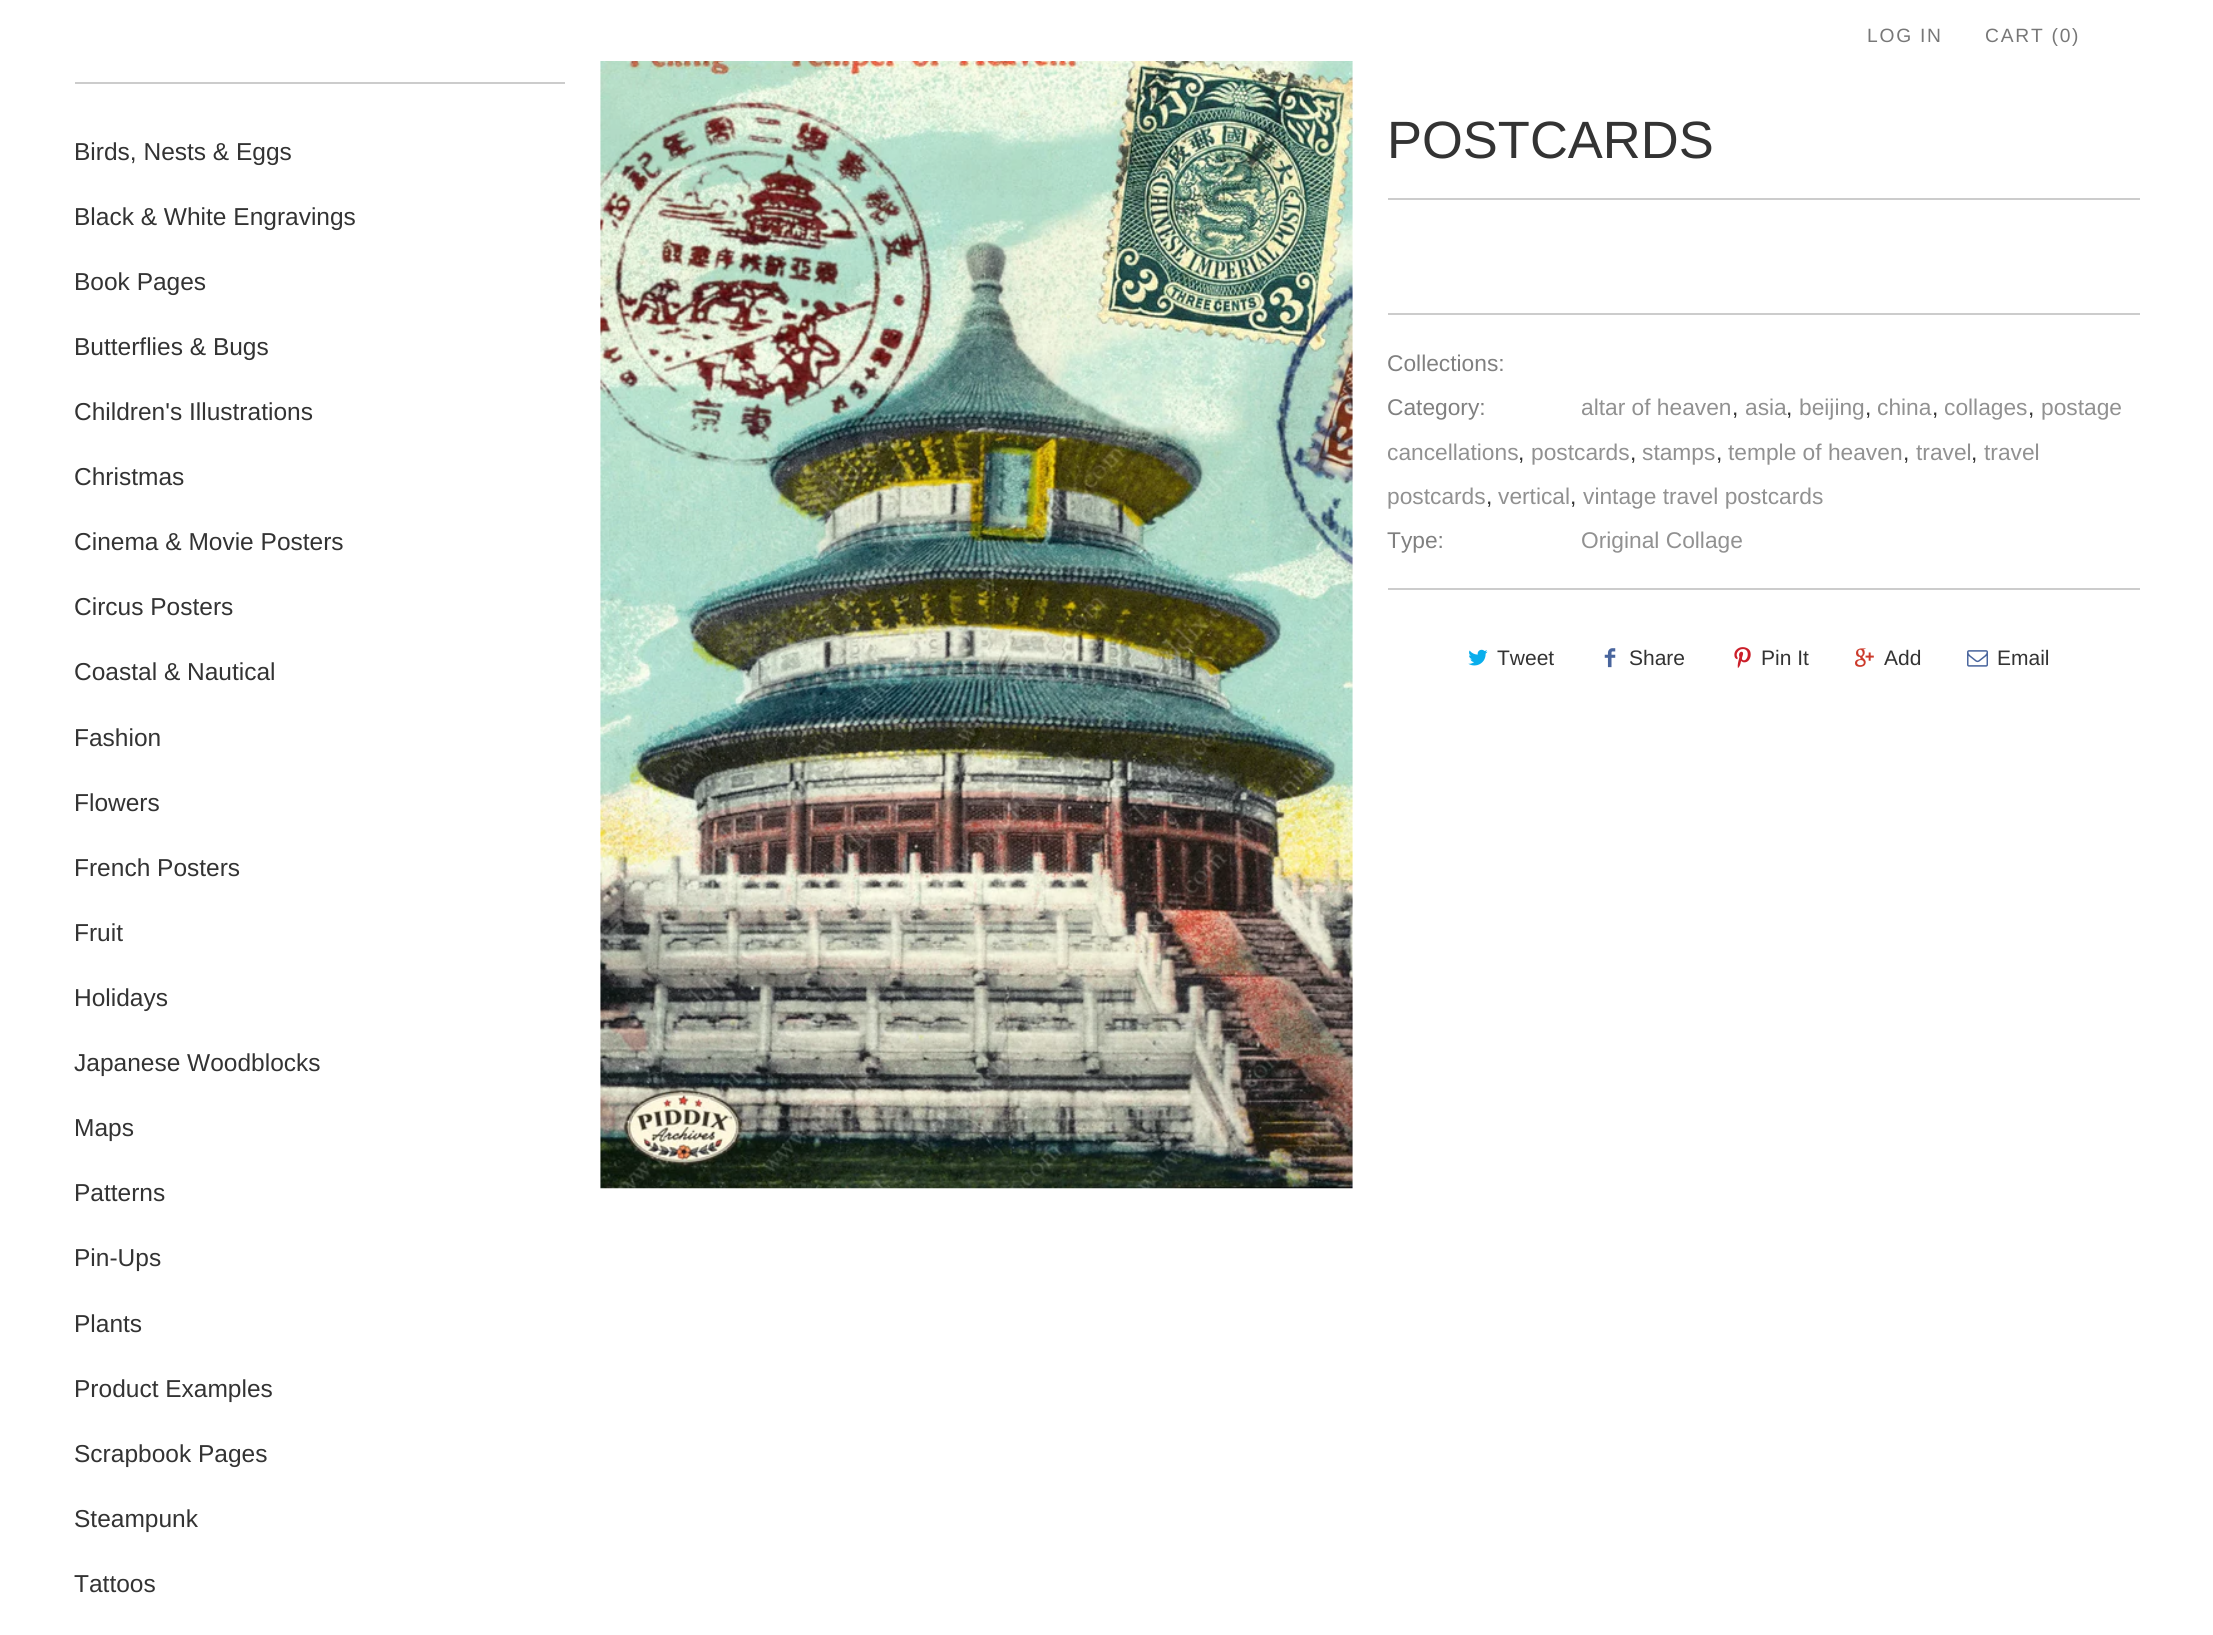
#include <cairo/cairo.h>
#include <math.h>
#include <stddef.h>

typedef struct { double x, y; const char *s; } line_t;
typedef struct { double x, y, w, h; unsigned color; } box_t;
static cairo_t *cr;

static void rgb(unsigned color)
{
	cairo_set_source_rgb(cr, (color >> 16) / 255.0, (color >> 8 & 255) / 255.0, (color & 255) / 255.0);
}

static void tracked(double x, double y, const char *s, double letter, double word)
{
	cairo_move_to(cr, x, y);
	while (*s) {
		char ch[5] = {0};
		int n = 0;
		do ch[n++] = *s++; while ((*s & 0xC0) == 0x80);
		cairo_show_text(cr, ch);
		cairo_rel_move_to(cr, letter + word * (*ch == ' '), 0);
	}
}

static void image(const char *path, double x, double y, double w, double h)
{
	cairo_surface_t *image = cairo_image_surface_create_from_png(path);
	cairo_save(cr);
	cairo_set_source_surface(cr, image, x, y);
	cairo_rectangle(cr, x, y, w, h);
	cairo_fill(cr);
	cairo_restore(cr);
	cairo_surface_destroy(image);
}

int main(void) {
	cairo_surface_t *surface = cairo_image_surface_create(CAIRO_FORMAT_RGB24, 2213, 1635);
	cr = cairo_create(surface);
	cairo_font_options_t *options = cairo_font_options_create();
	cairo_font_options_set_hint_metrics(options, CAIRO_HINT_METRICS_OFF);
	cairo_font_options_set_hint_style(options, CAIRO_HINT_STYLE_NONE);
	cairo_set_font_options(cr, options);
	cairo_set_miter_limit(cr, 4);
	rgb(0xffffff);
	cairo_paint(cr);
	rgb(0xcccccc);
	cairo_rectangle(cr, 75, 82, 490, 2);
	cairo_fill(cr);
	image("img/1.png", 600, 61, 753, 1128);
	{
		static const box_t items[] = {
			{1388, 198, 752, 2, 0xcccccc},
			{1388, 313, 752, 2, 0xcccccc},
			{1388, 588, 752, 2, 0xcccccc},
		};
		for (size_t i = 0; i < sizeof items / sizeof *items; i++) {
			rgb(items[i].color);
			cairo_rectangle(cr, items[i].x, items[i].y, items[i].w, items[i].h);
			cairo_fill(cr);
		}
	}
	image("img/2.png", 1468, 649, 20, 17);
	image("img/3.png", 1604, 648, 12, 20);
	image("img/4.png", 1734, 647, 17, 21);
	image("img/5.png", 1855, 648, 19, 19);
	image("img/6.png", 1967, 650, 21, 17);
	cairo_select_font_face(cr, "Liberation Sans", CAIRO_FONT_SLANT_NORMAL, CAIRO_FONT_WEIGHT_NORMAL);
	cairo_set_font_size(cr, 19.25);
	rgb(0x777777);
	tracked(1867, 42, "LOG IN", 1.75, 0);
	tracked(1985, 42, "CART (0)", 1.75, 0);
	cairo_set_font_size(cr, 24.5);
	rgb(0x333333);
	{
		static const line_t items[] = {
			{74, 160, "Birds, Nests & Eggs"},
			{74, 225, "Black & White Engravings"},
			{74, 290, "Book Pages"},
			{74, 355, "Butterflies & Bugs"},
			{74, 420, "Children's Illustrations"},
			{74, 485, "Christmas"},
			{74, 550, "Cinema & Movie Posters"},
			{74, 615, "Circus Posters"},
			{74, 680, "Coastal & Nautical"},
			{74, 746, "Fashion"},
			{74, 811, "Flowers"},
			{74, 876, "French Posters"},
			{74, 941, "Fruit"},
			{74, 1006, "Holidays"},
			{74, 1071, "Japanese Woodblocks"},
			{74, 1136, "Maps"},
			{74, 1201, "Patterns"},
			{74, 1266, "Pin-Ups"},
			{74, 1332, "Plants"},
			{74, 1397, "Product Examples"},
			{74, 1462, "Scrapbook Pages"},
			{74, 1527, "Steampunk"},
			{74, 1592, "Tattoos"},
		};
		for (size_t i = 0; i < sizeof items / sizeof *items; i++) {
			cairo_move_to(cr, items[i].x, items[i].y);
			cairo_show_text(cr, items[i].s);
		}
	}
	cairo_set_font_size(cr, 52.5);
	cairo_move_to(cr, 1387, 158);
	cairo_show_text(cr, "POSTCARDS");
	cairo_set_font_size(cr, 22.75);
	rgb(0x808080);
	cairo_move_to(cr, 1387, 371);
	cairo_show_text(cr, "Collections:");
	cairo_move_to(cr, 1387, 415);
	cairo_show_text(cr, "Category:");
	rgb(0x919191);
	cairo_move_to(cr, 1581, 415);
	cairo_show_text(cr, "altar of heaven");
	rgb(0x333333);
	cairo_move_to(cr, 1732, 415);
	cairo_show_text(cr, ",");
	rgb(0x919191);
	cairo_move_to(cr, 1745, 415);
	cairo_show_text(cr, "asia");
	rgb(0x333333);
	cairo_move_to(cr, 1786, 415);
	cairo_show_text(cr, ",");
	rgb(0x919191);
	cairo_move_to(cr, 1799, 415);
	cairo_show_text(cr, "beijing");
	rgb(0x333333);
	cairo_move_to(cr, 1865, 415);
	cairo_show_text(cr, ",");
	rgb(0x919191);
	cairo_move_to(cr, 1877, 415);
	cairo_show_text(cr, "china");
	rgb(0x333333);
	cairo_move_to(cr, 1932, 415);
	cairo_show_text(cr, ",");
	rgb(0x919191);
	cairo_move_to(cr, 1944, 415);
	cairo_show_text(cr, "collages");
	rgb(0x333333);
	cairo_move_to(cr, 2028, 415);
	cairo_show_text(cr, ",");
	rgb(0x919191);
	cairo_move_to(cr, 2041, 415);
	cairo_show_text(cr, "postage");
	cairo_move_to(cr, 1387, 460);
	cairo_show_text(cr, "cancellations");
	rgb(0x333333);
	cairo_move_to(cr, 1518, 460);
	cairo_show_text(cr, ",");
	rgb(0x919191);
	cairo_move_to(cr, 1531, 460);
	cairo_show_text(cr, "postcards");
	rgb(0x333333);
	cairo_move_to(cr, 1630, 460);
	cairo_show_text(cr, ",");
	rgb(0x919191);
	cairo_move_to(cr, 1642, 460);
	cairo_show_text(cr, "stamps");
	rgb(0x333333);
	cairo_move_to(cr, 1716, 460);
	cairo_show_text(cr, ",");
	rgb(0x919191);
	cairo_move_to(cr, 1728, 460);
	cairo_show_text(cr, "temple of heaven");
	rgb(0x333333);
	cairo_move_to(cr, 1903, 460);
	cairo_show_text(cr, ",");
	rgb(0x919191);
	cairo_move_to(cr, 1916, 460);
	cairo_show_text(cr, "travel");
	rgb(0x333333);
	cairo_move_to(cr, 1971, 460);
	cairo_show_text(cr, ",");
	rgb(0x919191);
	cairo_move_to(cr, 1984, 460);
	cairo_show_text(cr, "travel");
	cairo_move_to(cr, 1387, 504);
	cairo_show_text(cr, "postcards");
	rgb(0x333333);
	cairo_move_to(cr, 1486, 504);
	cairo_show_text(cr, ",");
	rgb(0x919191);
	cairo_move_to(cr, 1498, 504);
	cairo_show_text(cr, "vertical");
	rgb(0x333333);
	cairo_move_to(cr, 1570, 504);
	cairo_show_text(cr, ",");
	rgb(0x919191);
	cairo_move_to(cr, 1583, 504);
	cairo_show_text(cr, "vintage travel postcards");
	rgb(0x808080);
	cairo_move_to(cr, 1387, 548);
	cairo_show_text(cr, "Type:");
	rgb(0x919191);
	cairo_move_to(cr, 1581, 548);
	cairo_show_text(cr, "Original Collage");
	cairo_set_font_size(cr, 21);
	rgb(0x333333);
	{
		static const line_t items[] = {
			{1497, 665, "Tweet"},
			{1629, 665, "Share"},
			{1761, 665, "Pin It"},
			{1884, 665, "Add"},
			{1997, 665, "Email"},
		};
		for (size_t i = 0; i < sizeof items / sizeof *items; i++) {
			cairo_move_to(cr, items[i].x, items[i].y);
			cairo_show_text(cr, items[i].s);
		}
	}
	cairo_surface_write_to_png(surface, "page.png");
	cairo_font_options_destroy(options);
	cairo_destroy(cr);
	cairo_surface_destroy(surface);
	return 0;
}
